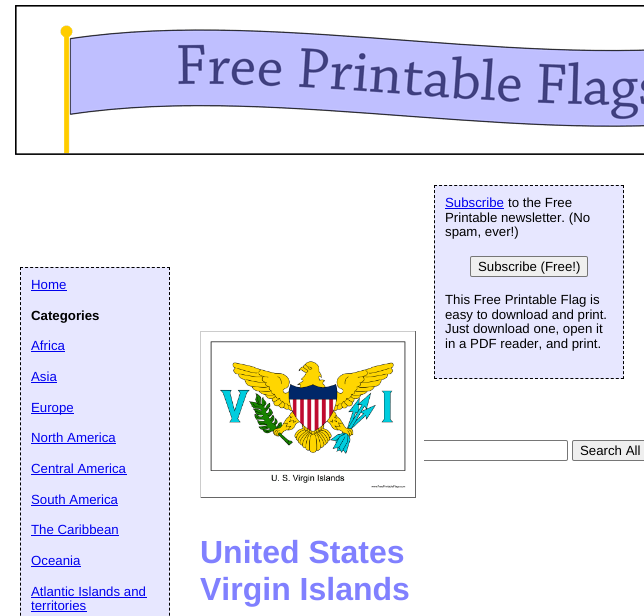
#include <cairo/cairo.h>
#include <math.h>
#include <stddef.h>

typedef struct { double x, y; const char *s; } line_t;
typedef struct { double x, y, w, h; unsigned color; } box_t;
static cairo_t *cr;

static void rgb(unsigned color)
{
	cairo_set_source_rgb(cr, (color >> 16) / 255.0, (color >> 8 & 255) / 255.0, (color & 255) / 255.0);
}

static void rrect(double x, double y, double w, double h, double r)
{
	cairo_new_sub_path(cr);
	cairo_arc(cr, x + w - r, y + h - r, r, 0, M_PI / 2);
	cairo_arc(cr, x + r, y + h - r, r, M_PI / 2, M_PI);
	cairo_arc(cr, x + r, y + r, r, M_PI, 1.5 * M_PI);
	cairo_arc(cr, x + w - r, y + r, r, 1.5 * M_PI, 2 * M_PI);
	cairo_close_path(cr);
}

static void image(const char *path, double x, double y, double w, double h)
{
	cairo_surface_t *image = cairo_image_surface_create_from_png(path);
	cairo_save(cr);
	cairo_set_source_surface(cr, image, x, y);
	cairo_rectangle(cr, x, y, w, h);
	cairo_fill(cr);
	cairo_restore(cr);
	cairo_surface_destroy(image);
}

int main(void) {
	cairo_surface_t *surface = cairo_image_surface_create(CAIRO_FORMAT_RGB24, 644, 616);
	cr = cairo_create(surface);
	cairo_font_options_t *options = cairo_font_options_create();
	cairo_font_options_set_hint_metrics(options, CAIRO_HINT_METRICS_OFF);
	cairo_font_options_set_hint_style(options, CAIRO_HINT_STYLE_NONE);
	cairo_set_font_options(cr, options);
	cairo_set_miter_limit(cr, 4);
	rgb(0xffffff);
	cairo_paint(cr);
	rgb(0xe7e7ff);
	cairo_rectangle(cr, 20, 267, 150, 349);
	cairo_fill(cr);
	cairo_new_path(cr);
	cairo_move_to(cr, 20, 267.5);
	cairo_line_to(cr, 170, 267.5);
	rgb(0x000000);
	cairo_set_line_width(cr, 1);
	cairo_set_dash(cr, (double[]){3, 2.07}, 2, 0);
	cairo_stroke(cr);
	cairo_new_path(cr);
	cairo_move_to(cr, 169.5, 267);
	cairo_line_to(cr, 169.5, 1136);
	cairo_set_dash(cr, (double[]){3, 2.01}, 2, 0);
	cairo_stroke(cr);
	cairo_new_path(cr);
	cairo_move_to(cr, 20.5, 267);
	cairo_line_to(cr, 20.5, 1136);
	cairo_stroke(cr);
	{
		static const box_t items[] = {
			{31, 290, 36, 1, 0x0000ee},
			{31, 351, 34, 1, 0x0000ee},
			{31, 382, 26, 1, 0x0000ee},
			{31, 413, 43, 1, 0x0000ee},
			{31, 443, 85, 1, 0x0000ee},
			{31, 474, 96, 1, 0x0000ee},
			{31, 505, 87, 1, 0x0000ee},
			{31, 535, 88, 1, 0x0000ee},
			{31, 566, 50, 1, 0x0000ee},
			{31, 597, 116, 1, 0x0000ee},
			{31, 611, 56, 1, 0x0000ee},
			{434, 185, 190, 194, 0xe7e7ff},
		};
		for (size_t i = 0; i < sizeof items / sizeof *items; i++) {
			rgb(items[i].color);
			cairo_rectangle(cr, items[i].x, items[i].y, items[i].w, items[i].h);
			cairo_fill(cr);
		}
	}
	cairo_new_path(cr);
	cairo_move_to(cr, 434, 185.5);
	cairo_line_to(cr, 624, 185.5);
	rgb(0x000000);
	cairo_set_dash(cr, (double[]){3, 2.05}, 2, 0);
	cairo_stroke(cr);
	cairo_new_path(cr);
	cairo_move_to(cr, 623.5, 185);
	cairo_line_to(cr, 623.5, 379);
	cairo_set_dash(cr, (double[]){3, 2.03}, 2, 0);
	cairo_stroke(cr);
	cairo_new_path(cr);
	cairo_move_to(cr, 434, 378.5);
	cairo_line_to(cr, 624, 378.5);
	cairo_set_dash(cr, (double[]){3, 2.05}, 2, 0);
	cairo_stroke(cr);
	cairo_new_path(cr);
	cairo_move_to(cr, 434.5, 185);
	cairo_line_to(cr, 434.5, 379);
	cairo_set_dash(cr, (double[]){3, 2.03}, 2, 0);
	cairo_stroke(cr);
	rgb(0x0000ee);
	cairo_rectangle(cr, 445, 208, 59, 1);
	cairo_fill(cr);
	rgb(0xefefef);
	rrect(470.5, 256.5, 117, 20, 1.5);
	cairo_fill_preserve(cr);
	rgb(0x767676);
	cairo_set_dash(cr, NULL, 0, 0);
	cairo_stroke(cr);
	image("img/1.png", 15, 5, 629, 150);
	rrect(295.5, 440.5, 272, 20, 1.5);
	cairo_stroke(cr);
	rgb(0xefefef);
	rrect(572.5, 440.5, 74, 20, 1.5);
	cairo_fill_preserve(cr);
	rgb(0x767676);
	cairo_stroke(cr);
	{
		static const box_t items[] = {
			{295, 440, 129, 21, 0xffffff},
			{200, 331, 216, 1, 0xcccccc},
			{415, 331, 1, 167, 0x666666},
			{200, 497, 216, 1, 0x666666},
			{200, 331, 1, 167, 0xcccccc},
		};
		for (size_t i = 0; i < sizeof items / sizeof *items; i++) {
			rgb(items[i].color);
			cairo_rectangle(cr, items[i].x, items[i].y, items[i].w, items[i].h);
			cairo_fill(cr);
		}
	}
	image("img/2.png", 210, 341, 196, 147);
	cairo_select_font_face(cr, "Liberation Sans", CAIRO_FONT_SLANT_NORMAL, CAIRO_FONT_WEIGHT_NORMAL);
	cairo_set_font_size(cr, 13.25);
	rgb(0x0000ee);
	cairo_move_to(cr, 31, 289);
	cairo_show_text(cr, "Home");
	cairo_select_font_face(cr, "Liberation Sans", CAIRO_FONT_SLANT_NORMAL, CAIRO_FONT_WEIGHT_BOLD);
	rgb(0x000000);
	cairo_move_to(cr, 31, 320);
	cairo_show_text(cr, "Categories");
	cairo_select_font_face(cr, "Liberation Sans", CAIRO_FONT_SLANT_NORMAL, CAIRO_FONT_WEIGHT_NORMAL);
	rgb(0x0000ee);
	{
		static const line_t items[] = {
			{31, 350, "Africa"},
			{31, 381, "Asia"},
			{31, 412, "Europe"},
			{31, 442, "North America"},
			{31, 473, "Central America"},
			{31, 504, "South America"},
			{31, 534, "The Caribbean"},
			{31, 565, "Oceania"},
			{31, 596, "Atlantic Islands and"},
			{31, 610, "territories"},
			{445, 207, "Subscribe"},
		};
		for (size_t i = 0; i < sizeof items / sizeof *items; i++) {
			cairo_move_to(cr, items[i].x, items[i].y);
			cairo_show_text(cr, items[i].s);
		}
	}
	rgb(0x000000);
	{
		static const line_t items[] = {
			{508, 207, "to the Free"},
			{445, 222, "Printable newsletter. (No"},
			{445, 236, "spam, ever!)"},
			{478, 271, "Subscribe (Free!)"},
			{445, 304, "This Free Printable Flag is"},
			{445, 319, "easy to download and print."},
			{445, 333, "Just download one, open it"},
			{445, 348, "in a PDF reader, and print."},
			{580, 455, "Search All"},
		};
		for (size_t i = 0; i < sizeof items / sizeof *items; i++) {
			cairo_move_to(cr, items[i].x, items[i].y);
			cairo_show_text(cr, items[i].s);
		}
	}
	cairo_select_font_face(cr, "Liberation Sans", CAIRO_FONT_SLANT_NORMAL, CAIRO_FONT_WEIGHT_BOLD);
	cairo_set_font_size(cr, 32);
	rgb(0x8080ff);
	cairo_move_to(cr, 200, 563);
	cairo_show_text(cr, "United States");
	cairo_move_to(cr, 200, 600);
	cairo_show_text(cr, "Virgin Islands");
	cairo_surface_write_to_png(surface, "page.png");
	cairo_font_options_destroy(options);
	cairo_destroy(cr);
	cairo_surface_destroy(surface);
	return 0;
}
